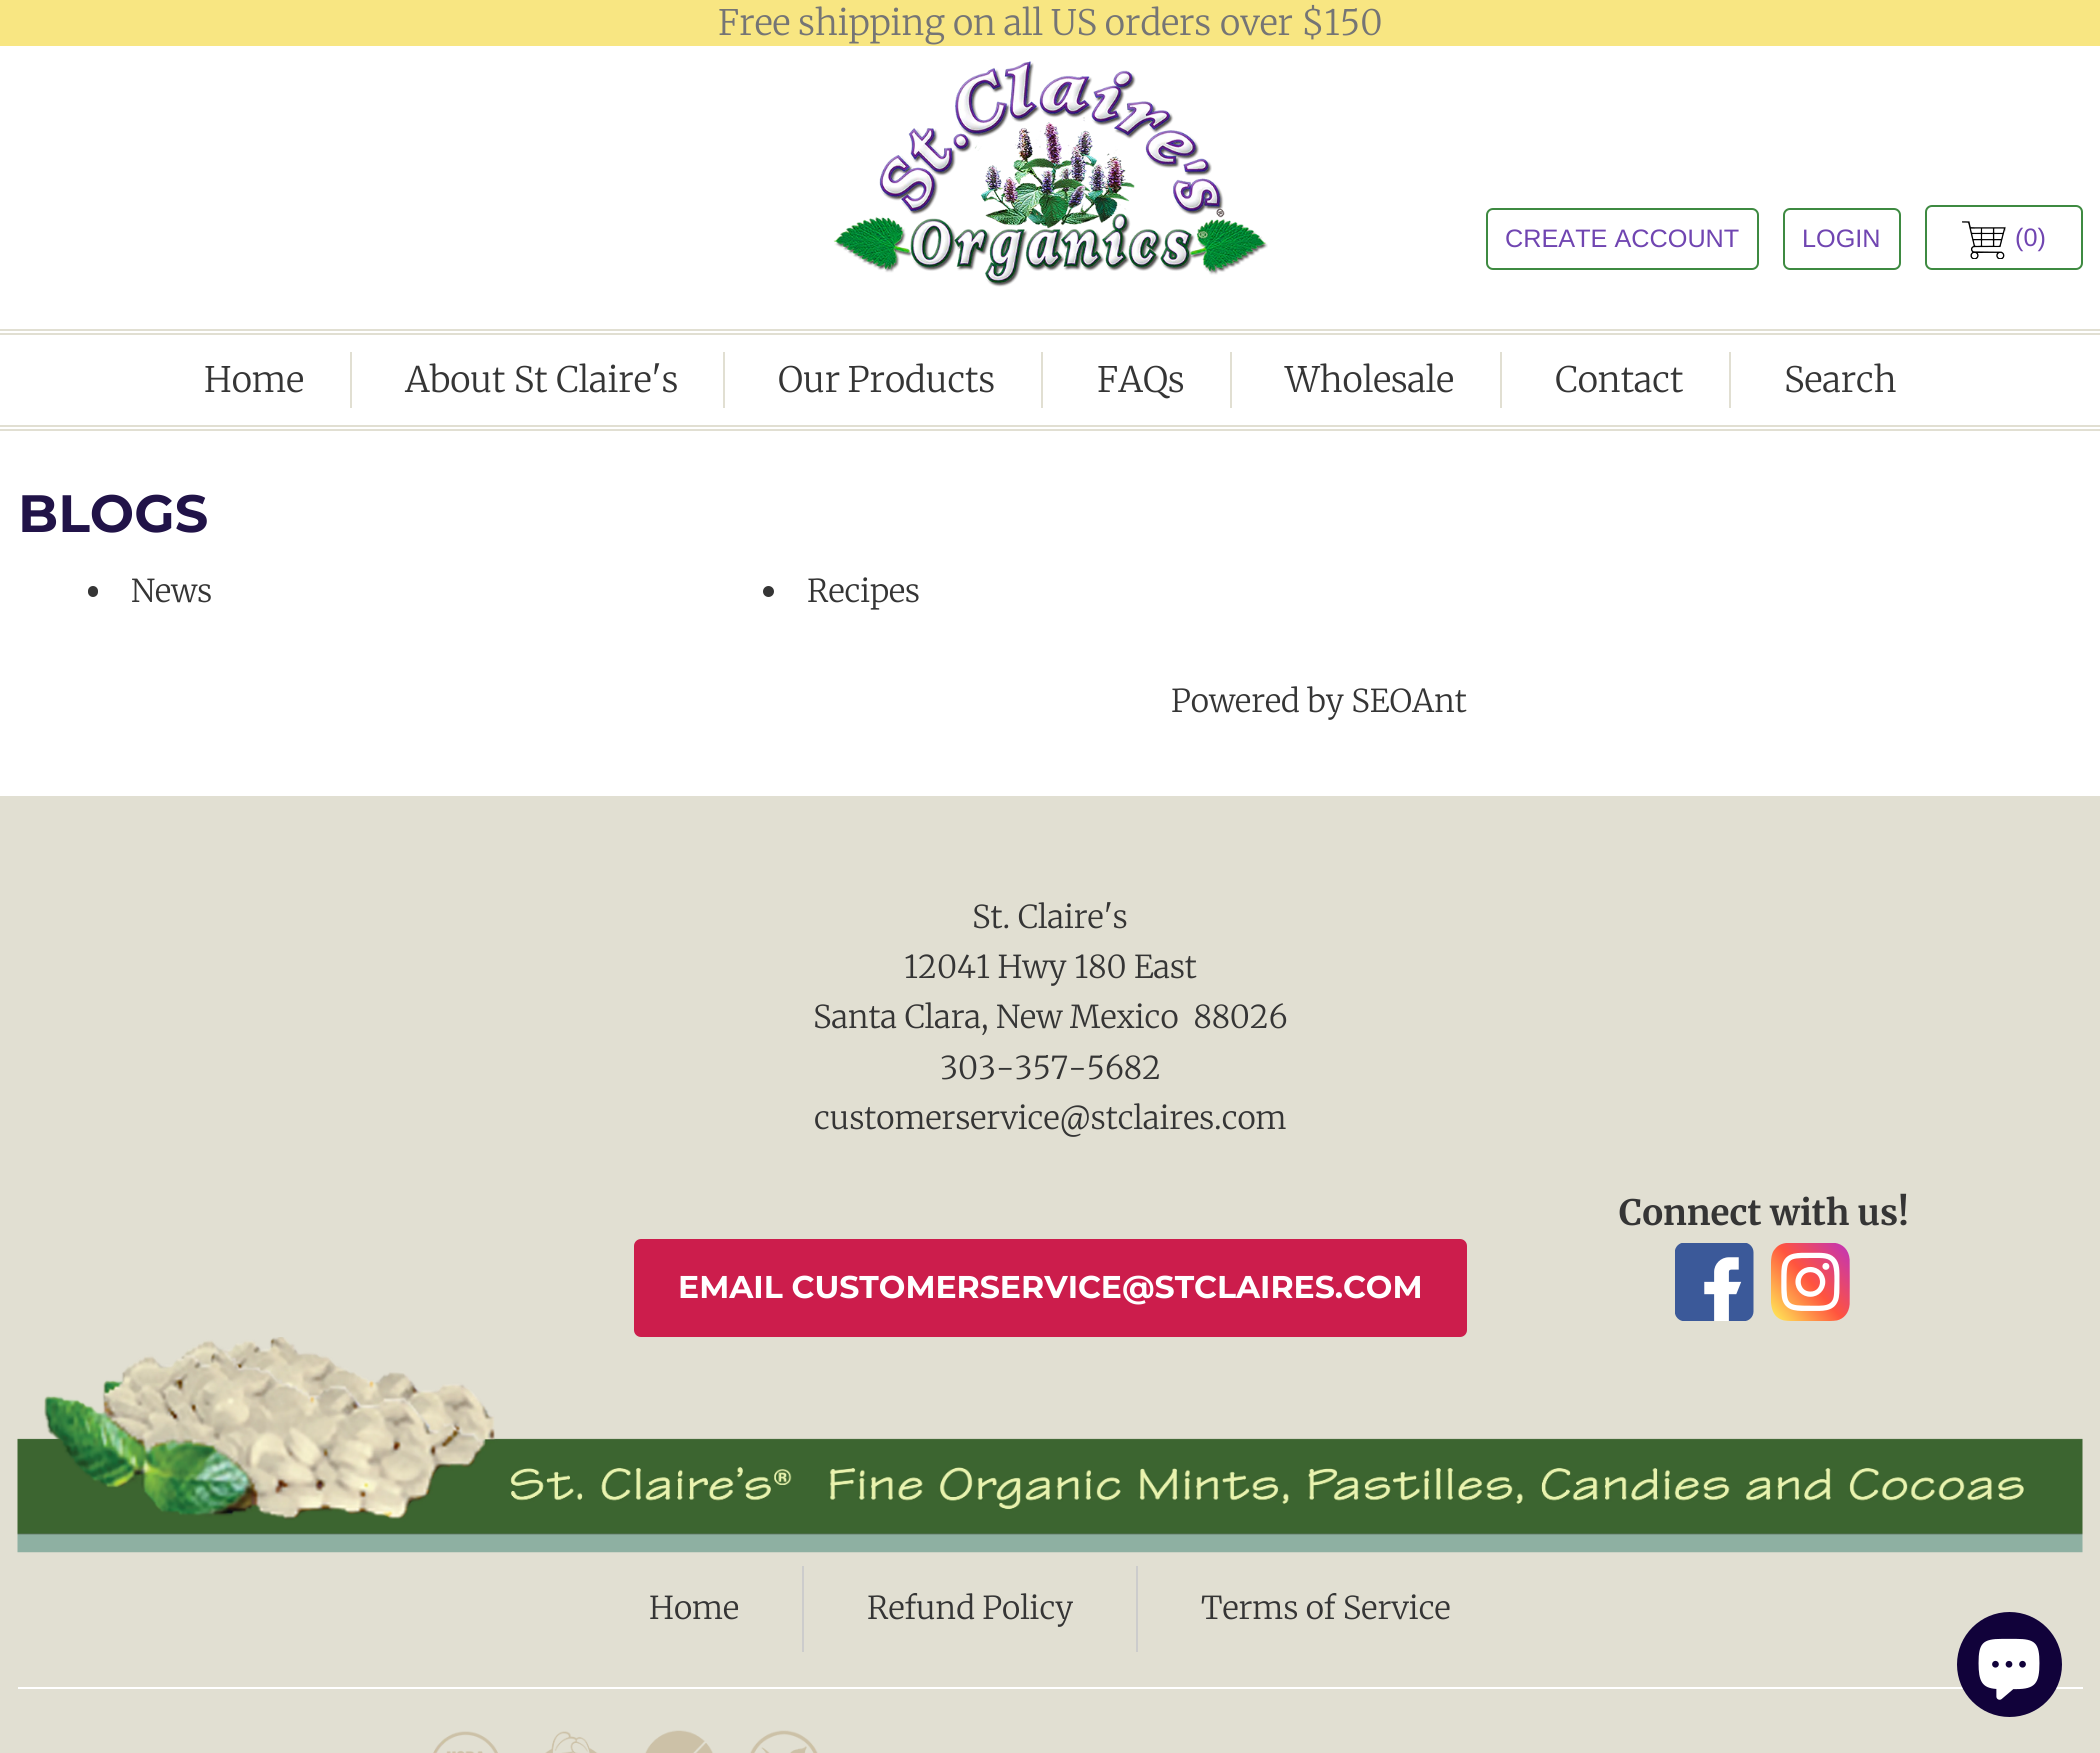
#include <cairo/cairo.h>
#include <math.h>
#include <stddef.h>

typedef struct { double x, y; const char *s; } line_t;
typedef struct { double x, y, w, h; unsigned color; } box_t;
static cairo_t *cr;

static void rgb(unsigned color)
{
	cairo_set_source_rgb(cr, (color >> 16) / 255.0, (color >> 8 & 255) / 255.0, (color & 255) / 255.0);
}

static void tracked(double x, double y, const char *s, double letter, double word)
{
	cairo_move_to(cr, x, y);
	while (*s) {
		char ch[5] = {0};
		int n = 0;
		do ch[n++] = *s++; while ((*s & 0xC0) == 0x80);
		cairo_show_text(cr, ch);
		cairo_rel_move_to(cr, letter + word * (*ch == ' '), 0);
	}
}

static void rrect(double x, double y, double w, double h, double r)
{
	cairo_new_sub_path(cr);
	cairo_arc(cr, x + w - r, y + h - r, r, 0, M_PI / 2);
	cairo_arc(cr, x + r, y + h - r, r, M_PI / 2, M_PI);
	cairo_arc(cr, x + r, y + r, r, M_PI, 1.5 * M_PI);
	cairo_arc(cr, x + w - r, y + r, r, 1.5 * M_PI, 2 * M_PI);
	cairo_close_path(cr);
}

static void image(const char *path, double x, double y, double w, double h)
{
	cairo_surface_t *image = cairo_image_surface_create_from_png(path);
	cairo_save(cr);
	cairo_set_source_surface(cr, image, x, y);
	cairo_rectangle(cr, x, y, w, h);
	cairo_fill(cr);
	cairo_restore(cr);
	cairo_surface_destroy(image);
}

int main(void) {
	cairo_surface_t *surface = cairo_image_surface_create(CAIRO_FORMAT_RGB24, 2100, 1753);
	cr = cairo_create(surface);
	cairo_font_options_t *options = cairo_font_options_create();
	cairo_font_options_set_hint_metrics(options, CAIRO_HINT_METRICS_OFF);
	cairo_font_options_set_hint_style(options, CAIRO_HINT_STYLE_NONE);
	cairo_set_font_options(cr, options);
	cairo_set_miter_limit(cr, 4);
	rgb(0xffffff);
	cairo_paint(cr);
	rgb(0xf8e682);
	cairo_rectangle(cr, 0, 0, 2100, 46);
	cairo_fill(cr);
	image("img/1.png", 833, 61, 435, 226);
	rrect(1487, 209, 271, 60, 6);
	rgb(0x3e8a41);
	cairo_stroke(cr);
	rrect(1784, 209, 116, 60, 6);
	cairo_stroke(cr);
	rrect(1926, 206, 156, 63, 6);
	cairo_stroke(cr);
	image("img/2.png", 1962, 221, 44, 38);
	{
		static const box_t items[] = {
			{0, 329, 2100, 2, 0xe1dfd2},
			{0, 333, 2100, 2, 0xe1dfd2},
			{0, 425, 2100, 2, 0xe1dfd2},
			{0, 429, 2100, 2, 0xe1dfd2},
			{350, 352, 2, 56, 0xe1dfd2},
			{723, 352, 2, 56, 0xe1dfd2},
			{1041, 352, 2, 56, 0xe1dfd2},
			{1230, 352, 2, 56, 0xe1dfd2},
			{1500, 352, 2, 56, 0xe1dfd2},
			{1729, 352, 2, 56, 0xe1dfd2},
		};
		for (size_t i = 0; i < sizeof items / sizeof *items; i++) {
			rgb(items[i].color);
			cairo_rectangle(cr, items[i].x, items[i].y, items[i].w, items[i].h);
			cairo_fill(cr);
		}
	}
	rgb(0x353535);
	rrect(88, 586, 10, 11, 5);
	cairo_fill(cr);
	cairo_arc(cr, 768.5, 591.5, 5.5, 0, 2 * M_PI);
	cairo_fill(cr);
	rgb(0xe1dfd2);
	cairo_rectangle(cr, 0, 796, 2100, 957);
	cairo_fill(cr);
	rgb(0xffffff);
	cairo_rectangle(cr, 18, 1687, 2065, 2);
	cairo_fill(cr);
	image("img/3.png", 1675, 1243, 79, 78);
	image("img/4.png", 1771, 1243, 79, 78);
	rgb(0xcc1d4c);
	rrect(634, 1239, 833, 98, 7);
	cairo_fill(cr);
	image("img/5.png", 17, 1337, 2066, 216);
	rgb(0xcccccc);
	cairo_rectangle(cr, 802, 1566, 2, 86);
	cairo_fill(cr);
	cairo_rectangle(cr, 1136, 1566, 2, 86);
	cairo_fill(cr);
	image("img/6.png", 433, 1730, 385, 23);
	rgb(0x11023a);
	cairo_arc(cr, 2009.5, 1664.5, 52.5, 0, 2 * M_PI);
	cairo_fill(cr);
	image("img/7.png", 1978, 1638, 62, 62);
	cairo_select_font_face(cr, "Merriweather Light", CAIRO_FONT_SLANT_NORMAL, CAIRO_FONT_WEIGHT_NORMAL);
	cairo_set_font_size(cr, 35);
	rgb(0x757575);
	tracked(718, 35, "Free shipping on all US orders", 0, -0.5);
	cairo_move_to(cr, 1220, 35);
	cairo_show_text(cr, "over $150");
	cairo_select_font_face(cr, "Liberation Sans", CAIRO_FONT_SLANT_NORMAL, CAIRO_FONT_WEIGHT_NORMAL);
	cairo_set_font_size(cr, 25.25);
	rgb(0x7045b1);
	{
		static const line_t items[] = {
			{1505, 247, "CREATE ACCOUNT"},
			{1802, 247, "LOGIN"},
			{2015, 246, "(0)"},
		};
		for (size_t i = 0; i < sizeof items / sizeof *items; i++) {
			cairo_move_to(cr, items[i].x, items[i].y);
			cairo_show_text(cr, items[i].s);
		}
	}
	cairo_select_font_face(cr, "Merriweather Light", CAIRO_FONT_SLANT_NORMAL, CAIRO_FONT_WEIGHT_NORMAL);
	cairo_set_font_size(cr, 35);
	rgb(0x353535);
	cairo_move_to(cr, 204, 392);
	cairo_show_text(cr, "Home");
	cairo_move_to(cr, 405, 392);
	cairo_show_text(cr, "About St Claire's");
	tracked(778, 392, "Our Products", 0, -1);
	{
		static const line_t items[] = {
			{1097, 392, "FAQs"},
			{1285, 392, "Wholesale"},
			{1555, 392, "Contact"},
			{1784, 392, "Search"},
		};
		for (size_t i = 0; i < sizeof items / sizeof *items; i++) {
			cairo_move_to(cr, items[i].x, items[i].y);
			cairo_show_text(cr, items[i].s);
		}
	}
	cairo_select_font_face(cr, "Montserrat", CAIRO_FONT_SLANT_NORMAL, CAIRO_FONT_WEIGHT_BOLD);
	cairo_set_font_size(cr, 52.5);
	rgb(0x211348);
	cairo_move_to(cr, 18, 532);
	cairo_show_text(cr, "BLOGS");
	cairo_select_font_face(cr, "Merriweather Light", CAIRO_FONT_SLANT_NORMAL, CAIRO_FONT_WEIGHT_NORMAL);
	cairo_set_font_size(cr, 31.5);
	rgb(0x353535);
	{
		static const line_t items[] = {
			{131, 602, "News"},
			{807, 602, "Recipes"},
			{1171, 712, "Powered by SEOAnt"},
			{972, 928, "St. Claire's"},
			{904, 978, "12041 Hwy 180 East"},
			{813, 1028, "Santa Clara, New Mexico  88026"},
			{940, 1079, "303-357-5682"},
			{814, 1129, "customerservice@stclaires.com"},
		};
		for (size_t i = 0; i < sizeof items / sizeof *items; i++) {
			cairo_move_to(cr, items[i].x, items[i].y);
			cairo_show_text(cr, items[i].s);
		}
	}
	cairo_select_font_face(cr, "Merriweather", CAIRO_FONT_SLANT_NORMAL, CAIRO_FONT_WEIGHT_BOLD);
	cairo_set_font_size(cr, 35);
	cairo_move_to(cr, 1619, 1225);
	cairo_show_text(cr, "Connect with us!");
	cairo_select_font_face(cr, "Montserrat", CAIRO_FONT_SLANT_NORMAL, CAIRO_FONT_WEIGHT_BOLD);
	cairo_set_font_size(cr, 31.5);
	rgb(0xffffff);
	cairo_move_to(cr, 678, 1298);
	cairo_show_text(cr, "EMAIL CUSTOMERSERVICE@STCLAIRES.COM");
	cairo_select_font_face(cr, "Merriweather Light", CAIRO_FONT_SLANT_NORMAL, CAIRO_FONT_WEIGHT_NORMAL);
	rgb(0x353535);
	{
		static const line_t items[] = {
			{649, 1619, "Home"},
			{867, 1619, "Refund Policy"},
			{1201, 1619, "Terms of Service"},
		};
		for (size_t i = 0; i < sizeof items / sizeof *items; i++) {
			cairo_move_to(cr, items[i].x, items[i].y);
			cairo_show_text(cr, items[i].s);
		}
	}
	cairo_surface_write_to_png(surface, "page.png");
	cairo_font_options_destroy(options);
	cairo_destroy(cr);
	cairo_surface_destroy(surface);
	return 0;
}
